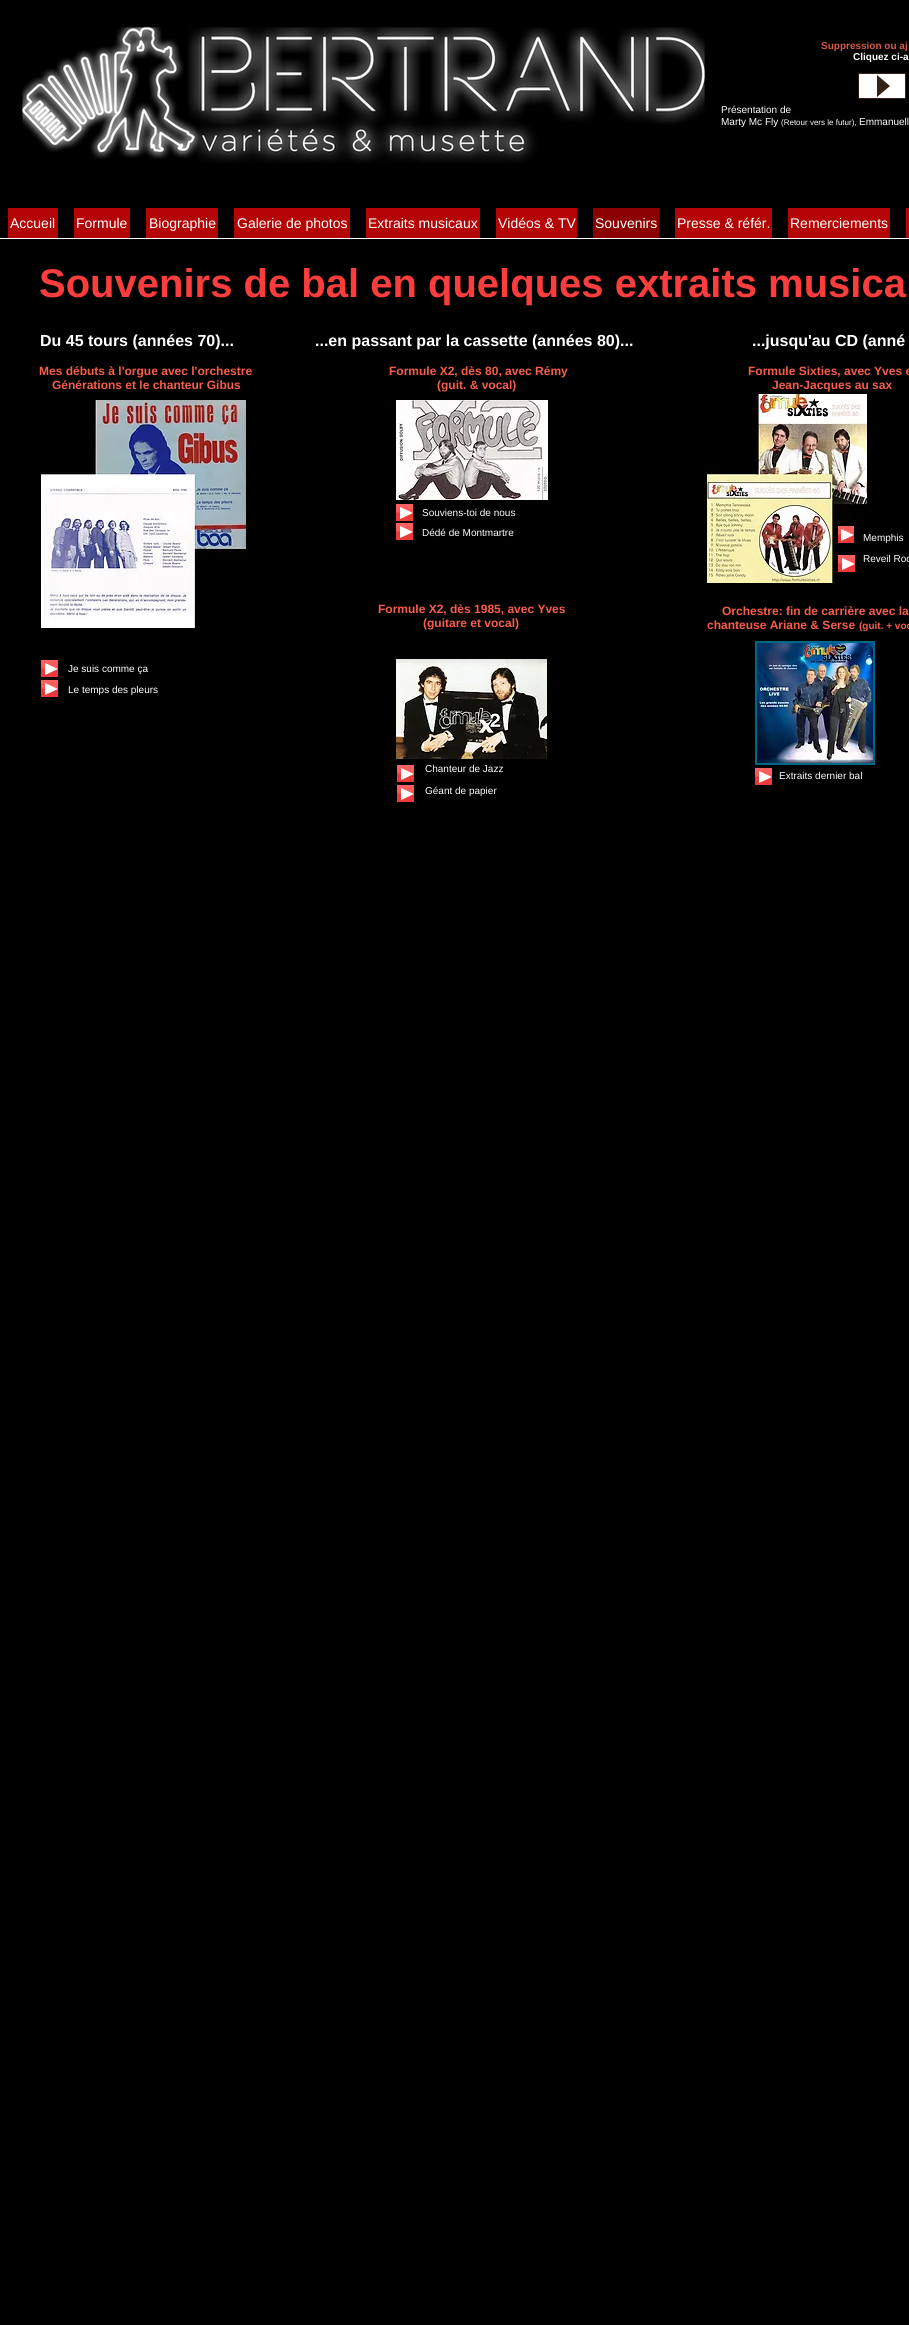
#include <cairo/cairo.h>
#include <math.h>
#include <stddef.h>

typedef struct { double x, y; const char *s; } line_t;
typedef struct { double x, y, w, h; unsigned color; } box_t;
static cairo_t *cr;

static void rgb(unsigned color)
{
	cairo_set_source_rgb(cr, (color >> 16) / 255.0, (color >> 8 & 255) / 255.0, (color & 255) / 255.0);
}

static void image(const char *path, double x, double y, double w, double h)
{
	cairo_surface_t *image = cairo_image_surface_create_from_png(path);
	cairo_save(cr);
	cairo_set_source_surface(cr, image, x, y);
	cairo_rectangle(cr, x, y, w, h);
	cairo_fill(cr);
	cairo_restore(cr);
	cairo_surface_destroy(image);
}

int main(void) {
	cairo_surface_t *surface = cairo_image_surface_create(CAIRO_FORMAT_RGB24, 909, 2325);
	cr = cairo_create(surface);
	cairo_font_options_t *options = cairo_font_options_create();
	cairo_font_options_set_hint_metrics(options, CAIRO_HINT_METRICS_OFF);
	cairo_font_options_set_hint_style(options, CAIRO_HINT_STYLE_NONE);
	cairo_set_font_options(cr, options);
	cairo_set_miter_limit(cr, 4);
	rgb(0x000000);
	cairo_paint(cr);
	image("img/1.png", 22, 26, 683, 137);
	rgb(0xffffff);
	cairo_rectangle(cr, 858.5, 73.5, 47, 25);
	cairo_fill_preserve(cr);
	rgb(0x342216);
	cairo_set_line_width(cr, 1);
	cairo_stroke(cr);
	cairo_new_path(cr);
	cairo_move_to(cr, 877, 97);
	cairo_line_to(cr, 877, 75);
	cairo_line_to(cr, 890, 86);
	cairo_close_path(cr);
	cairo_fill(cr);
	{
		static const box_t items[] = {
			{8, 208, 50, 30, 0xb30505},
			{74, 208, 56, 30, 0xb30505},
			{146, 208, 72, 30, 0xb30505},
			{234, 208, 116, 30, 0xb30505},
			{366, 208, 114, 30, 0xb30505},
			{496, 208, 81, 30, 0xb30505},
			{593, 208, 66, 30, 0x8b0000},
			{675, 208, 97, 30, 0xb30505},
			{788, 208, 102, 30, 0xb30505},
			{906, 208, 3, 30, 0xb30505},
			{0, 238, 909, 1, 0xffffff},
		};
		for (size_t i = 0; i < sizeof items / sizeof *items; i++) {
			rgb(items[i].color);
			cairo_rectangle(cr, items[i].x, items[i].y, items[i].w, items[i].h);
			cairo_fill(cr);
		}
	}
	image("img/2.png", 41, 400, 205, 228);
	image("img/3.png", 396, 400, 152, 100);
	image("img/4.png", 707, 394, 160, 189);
	rgb(0xfc3d3d);
	cairo_rectangle(cr, 396, 504, 17, 17);
	cairo_fill(cr);
	image("img/5.png", 396, 504, 17, 17);
	rgb(0xffffff);
	cairo_new_path(cr);
	cairo_move_to(cr, 400, 519);
	cairo_line_to(cr, 400, 507);
	cairo_line_to(cr, 413, 513);
	cairo_close_path(cr);
	cairo_fill(cr);
	rgb(0xfc3d3d);
	cairo_rectangle(cr, 396, 523, 17, 17);
	cairo_fill(cr);
	image("img/5.png", 396, 523, 17, 17);
	rgb(0xffffff);
	cairo_new_path(cr);
	cairo_move_to(cr, 400, 538);
	cairo_line_to(cr, 400, 526);
	cairo_line_to(cr, 413, 532);
	cairo_close_path(cr);
	cairo_fill(cr);
	rgb(0xfc3d3d);
	cairo_rectangle(cr, 838, 526, 16, 17);
	cairo_fill(cr);
	image("img/6.png", 838, 526, 16, 17);
	rgb(0xffffff);
	cairo_new_path(cr);
	cairo_move_to(cr, 841, 541);
	cairo_line_to(cr, 841, 529);
	cairo_line_to(cr, 854, 535);
	cairo_close_path(cr);
	cairo_fill(cr);
	rgb(0xfc3d3d);
	cairo_rectangle(cr, 838, 555, 17, 17);
	cairo_fill(cr);
	image("img/5.png", 838, 555, 17, 17);
	rgb(0xffffff);
	cairo_new_path(cr);
	cairo_move_to(cr, 842, 570);
	cairo_line_to(cr, 842, 558);
	cairo_line_to(cr, 855, 564);
	cairo_close_path(cr);
	cairo_fill(cr);
	rgb(0xfc3d3d);
	cairo_rectangle(cr, 41, 660, 17, 17);
	cairo_fill(cr);
	image("img/5.png", 41, 660, 17, 17);
	rgb(0xffffff);
	cairo_new_path(cr);
	cairo_move_to(cr, 45, 675);
	cairo_line_to(cr, 45, 663);
	cairo_line_to(cr, 58, 669);
	cairo_close_path(cr);
	cairo_fill(cr);
	image("img/7.png", 396, 659, 151, 100);
	rgb(0x006784);
	cairo_rectangle(cr, 755, 641, 120, 124);
	cairo_fill(cr);
	image("img/8.png", 757, 643, 116, 120);
	rgb(0xfc3d3d);
	cairo_rectangle(cr, 41, 680, 17, 17);
	cairo_fill(cr);
	image("img/5.png", 41, 680, 17, 17);
	rgb(0xffffff);
	cairo_new_path(cr);
	cairo_move_to(cr, 45, 695);
	cairo_line_to(cr, 45, 683);
	cairo_line_to(cr, 58, 689);
	cairo_close_path(cr);
	cairo_fill(cr);
	rgb(0xfc3d3d);
	cairo_rectangle(cr, 397, 765, 17, 17);
	cairo_fill(cr);
	image("img/5.png", 397, 765, 17, 17);
	rgb(0xffffff);
	cairo_new_path(cr);
	cairo_move_to(cr, 401, 780);
	cairo_line_to(cr, 401, 768);
	cairo_line_to(cr, 414, 774);
	cairo_close_path(cr);
	cairo_fill(cr);
	rgb(0xfc3d3d);
	cairo_rectangle(cr, 755, 768, 17, 17);
	cairo_fill(cr);
	image("img/5.png", 755, 768, 17, 17);
	rgb(0xffffff);
	cairo_new_path(cr);
	cairo_move_to(cr, 759, 783);
	cairo_line_to(cr, 759, 771);
	cairo_line_to(cr, 772, 777);
	cairo_close_path(cr);
	cairo_fill(cr);
	rgb(0xfc3d3d);
	cairo_rectangle(cr, 397, 785, 17, 17);
	cairo_fill(cr);
	image("img/5.png", 397, 785, 17, 17);
	rgb(0xffffff);
	cairo_new_path(cr);
	cairo_move_to(cr, 401, 800);
	cairo_line_to(cr, 401, 788);
	cairo_line_to(cr, 414, 794);
	cairo_close_path(cr);
	cairo_fill(cr);
	cairo_select_font_face(cr, "Liberation Sans", CAIRO_FONT_SLANT_NORMAL, CAIRO_FONT_WEIGHT_BOLD);
	cairo_set_font_size(cr, 10);
	rgb(0xd45a4a);
	cairo_move_to(cr, 821, 49);
	cairo_show_text(cr, "Suppression ou aj");
	rgb(0xffffff);
	cairo_move_to(cr, 853, 60);
	cairo_show_text(cr, "Cliquez ci-a");
	cairo_select_font_face(cr, "Liberation Sans", CAIRO_FONT_SLANT_NORMAL, CAIRO_FONT_WEIGHT_NORMAL);
	cairo_move_to(cr, 721, 113);
	cairo_show_text(cr, "Présentation de");
	cairo_move_to(cr, 721, 125);
	cairo_show_text(cr, "Marty Mc Fly");
	cairo_set_font_size(cr, 8);
	cairo_move_to(cr, 781, 125);
	cairo_show_text(cr, "(Retour vers le futur),");
	cairo_set_font_size(cr, 10);
	cairo_move_to(cr, 859, 125);
	cairo_show_text(cr, "Emmanuell");
	cairo_set_font_size(cr, 14);
	{
		static const line_t items[] = {
			{10, 228, "Accueil"},
			{76, 228, "Formule"},
			{149, 228, "Biographie"},
			{237, 228, "Galerie de photos"},
			{368, 228, "Extraits musicaux"},
			{498, 228, "Vidéos & TV"},
			{595, 228, "Souvenirs"},
			{677, 228, "Presse & référ."},
			{790, 228, "Remerciements"},
		};
		for (size_t i = 0; i < sizeof items / sizeof *items; i++) {
			cairo_move_to(cr, items[i].x, items[i].y);
			cairo_show_text(cr, items[i].s);
		}
	}
	cairo_select_font_face(cr, "Liberation Sans", CAIRO_FONT_SLANT_NORMAL, CAIRO_FONT_WEIGHT_BOLD);
	cairo_set_font_size(cr, 40);
	rgb(0xfc3d3d);
	cairo_move_to(cr, 39, 297);
	cairo_show_text(cr, "Souvenirs de bal en quelques extraits musica");
	cairo_set_font_size(cr, 16);
	rgb(0xffffff);
	{
		static const line_t items[] = {
			{40, 346, "Du 45 tours (années 70)..."},
			{315, 346, "...en passant par la cassette (années 80)..."},
			{752, 346, "...jusqu'au CD (anné"},
		};
		for (size_t i = 0; i < sizeof items / sizeof *items; i++) {
			cairo_move_to(cr, items[i].x, items[i].y);
			cairo_show_text(cr, items[i].s);
		}
	}
	cairo_set_font_size(cr, 12);
	rgb(0xf75e4a);
	{
		static const line_t items[] = {
			{39, 375, "Mes débuts à l'orgue avec l'orchestre"},
			{52, 389, "Générations et le chanteur Gibus"},
			{389, 375, "Formule X2, dès 80, avec Rémy"},
			{437, 389, "(guit. & vocal)"},
			{748, 375, "Formule Sixties, avec Yves e"},
			{772, 389, "Jean-Jacques au sax"},
		};
		for (size_t i = 0; i < sizeof items / sizeof *items; i++) {
			cairo_move_to(cr, items[i].x, items[i].y);
			cairo_show_text(cr, items[i].s);
		}
	}
	cairo_select_font_face(cr, "Liberation Sans", CAIRO_FONT_SLANT_NORMAL, CAIRO_FONT_WEIGHT_NORMAL);
	cairo_set_font_size(cr, 10);
	rgb(0xffffff);
	{
		static const line_t items[] = {
			{422, 516, "Souviens-toi de nous"},
			{422, 536, "Dédé de Montmartre"},
			{863, 541, "Memphis"},
			{863, 562, "Reveil Roc"},
		};
		for (size_t i = 0; i < sizeof items / sizeof *items; i++) {
			cairo_move_to(cr, items[i].x, items[i].y);
			cairo_show_text(cr, items[i].s);
		}
	}
	cairo_select_font_face(cr, "Liberation Sans", CAIRO_FONT_SLANT_NORMAL, CAIRO_FONT_WEIGHT_BOLD);
	cairo_set_font_size(cr, 12);
	rgb(0xf75e4a);
	{
		static const line_t items[] = {
			{378, 613, "Formule X2, dès 1985, avec Yves"},
			{423, 627, "(guitare et vocal)"},
			{722, 615, "Orchestre: fin de carrière avec la"},
			{707, 629, "chanteuse Ariane & Serse"},
		};
		for (size_t i = 0; i < sizeof items / sizeof *items; i++) {
			cairo_move_to(cr, items[i].x, items[i].y);
			cairo_show_text(cr, items[i].s);
		}
	}
	cairo_set_font_size(cr, 10);
	cairo_move_to(cr, 859, 629);
	cairo_show_text(cr, "(guit. + voc");
	cairo_select_font_face(cr, "Liberation Sans", CAIRO_FONT_SLANT_NORMAL, CAIRO_FONT_WEIGHT_NORMAL);
	rgb(0xffffff);
	{
		static const line_t items[] = {
			{68, 672, "Je suis comme ça"},
			{68, 693, "Le temps des pleurs"},
			{425, 772, "Chanteur de Jazz"},
			{779, 779, "Extraits dernier bal"},
			{425, 794, "Géant de papier"},
		};
		for (size_t i = 0; i < sizeof items / sizeof *items; i++) {
			cairo_move_to(cr, items[i].x, items[i].y);
			cairo_show_text(cr, items[i].s);
		}
	}
	cairo_surface_write_to_png(surface, "page.png");
	cairo_font_options_destroy(options);
	cairo_destroy(cr);
	cairo_surface_destroy(surface);
	return 0;
}
